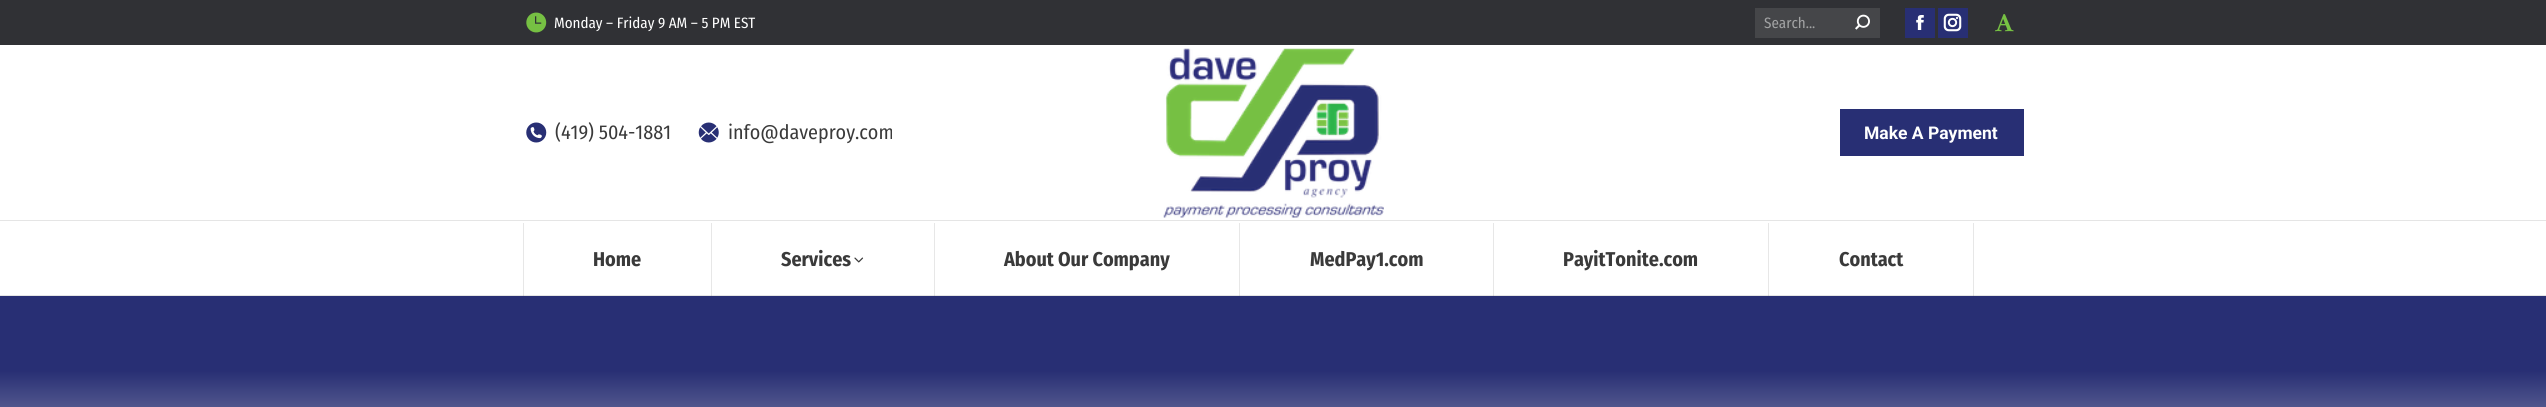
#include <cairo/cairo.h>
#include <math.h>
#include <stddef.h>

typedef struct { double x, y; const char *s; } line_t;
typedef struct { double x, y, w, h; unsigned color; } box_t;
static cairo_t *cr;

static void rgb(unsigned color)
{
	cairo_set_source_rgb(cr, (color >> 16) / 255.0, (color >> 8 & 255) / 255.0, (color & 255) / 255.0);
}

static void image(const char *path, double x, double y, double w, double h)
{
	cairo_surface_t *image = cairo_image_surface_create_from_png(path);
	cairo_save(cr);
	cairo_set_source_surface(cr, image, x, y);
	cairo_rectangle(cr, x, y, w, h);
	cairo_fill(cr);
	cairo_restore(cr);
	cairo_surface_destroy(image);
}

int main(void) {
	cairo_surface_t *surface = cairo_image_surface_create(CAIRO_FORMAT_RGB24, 2546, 407);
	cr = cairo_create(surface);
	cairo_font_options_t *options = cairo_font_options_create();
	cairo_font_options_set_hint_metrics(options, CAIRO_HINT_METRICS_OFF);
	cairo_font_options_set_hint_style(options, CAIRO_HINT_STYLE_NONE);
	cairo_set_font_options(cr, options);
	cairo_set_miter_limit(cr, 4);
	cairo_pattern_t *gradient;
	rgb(0xffffff);
	cairo_paint(cr);
	{
		static const box_t items[] = {
			{1973, 223, 1, 73, 0xe7e7e7},
			{1768, 223, 1, 73, 0xe7e7e7},
			{1493, 223, 1, 73, 0xe7e7e7},
			{1239, 223, 1, 73, 0xe7e7e7},
			{934, 223, 1, 73, 0xe7e7e7},
			{711, 223, 1, 73, 0xe7e7e7},
			{523, 223, 1, 73, 0xe7e7e7},
			{0, 295, 2546, 1, 0xe5e5e5},
			{1973, 295, 1, 1, 0xd0d0d0},
			{1768, 295, 1, 1, 0xd0d0d0},
			{1493, 295, 1, 1, 0xd0d0d0},
			{1239, 295, 1, 1, 0xd0d0d0},
			{934, 295, 1, 1, 0xd0d0d0},
			{711, 295, 1, 1, 0xd0d0d0},
			{523, 295, 1, 1, 0xd0d0d0},
			{0, 0, 2546, 45, 0x303135},
		};
		for (size_t i = 0; i < sizeof items / sizeof *items; i++) {
			rgb(items[i].color);
			cairo_rectangle(cr, items[i].x, items[i].y, items[i].w, items[i].h);
			cairo_fill(cr);
		}
	}
	image("img/1.png", 526, 12, 21, 21);
	rgb(0x454649);
	cairo_rectangle(cr, 1755, 8, 125, 30);
	cairo_fill(cr);
	image("img/2.png", 1855, 14, 15, 16);
	rgb(0x282f74);
	cairo_rectangle(cr, 1905, 8, 30, 30);
	cairo_fill(cr);
	image("img/3.png", 1916, 15, 8, 15);
	cairo_rectangle(cr, 1938, 8, 30, 30);
	cairo_fill(cr);
	image("img/4.png", 1943, 13, 19, 19);
	image("img/5.png", 1995, 14, 19, 18);
	image("img/6.png", 526, 122, 21, 21);
	image("img/7.png", 698, 122, 21, 21);
	image("img/8.png", 1163, 48, 221, 170);
	cairo_rectangle(cr, 1840, 109, 184, 47);
	cairo_fill(cr);
	rgb(0xe5e5e5);
	cairo_rectangle(cr, 0, 220, 2546, 1);
	cairo_fill(cr);
	image("img/9.png", 854, 257, 10, 6);
	gradient = cairo_pattern_create_linear(1273, 296, 1273, 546);
	cairo_pattern_add_color_stop_rgba(gradient, 0.3, 0.157, 0.184, 0.455, 1);
	cairo_pattern_add_color_stop_rgba(gradient, 1, 0.918, 0.918, 0.918, 1);
	cairo_set_source(cr, gradient);
	cairo_pattern_destroy(gradient);
	cairo_rectangle(cr, 0, 296, 2546, 111);
	cairo_fill(cr);
	cairo_select_font_face(cr, "Fira Sans Condensed", CAIRO_FONT_SLANT_NORMAL, CAIRO_FONT_WEIGHT_NORMAL);
	cairo_set_font_size(cr, 15);
	rgb(0xffffff);
	cairo_move_to(cr, 554, 28);
	cairo_show_text(cr, "Monday – Friday 9 AM – 5 PM EST");
	rgb(0xa2a3a4);
	cairo_move_to(cr, 1764, 28);
	cairo_show_text(cr, "Search...");
	cairo_set_font_size(cr, 20);
	rgb(0x3a3a3a);
	cairo_move_to(cr, 555, 139);
	cairo_show_text(cr, "(419) 504-1881");
	cairo_move_to(cr, 728, 139);
	cairo_show_text(cr, "info@daveproy.com");
	cairo_select_font_face(cr, "Roboto", CAIRO_FONT_SLANT_NORMAL, CAIRO_FONT_WEIGHT_BOLD);
	cairo_set_font_size(cr, 17.5);
	rgb(0xffffff);
	cairo_move_to(cr, 1864, 139);
	cairo_show_text(cr, "Make A Payment");
	cairo_select_font_face(cr, "Fira Sans Condensed", CAIRO_FONT_SLANT_NORMAL, CAIRO_FONT_WEIGHT_BOLD);
	cairo_set_font_size(cr, 20);
	rgb(0x3a3a3a);
	{
		static const line_t items[] = {
			{593, 266, "Home"},
			{781, 266, "Services"},
			{1004, 266, "About Our Company"},
			{1310, 266, "MedPay1.com"},
			{1563, 266, "PayitTonite.com"},
			{1839, 266, "Contact"},
		};
		for (size_t i = 0; i < sizeof items / sizeof *items; i++) {
			cairo_move_to(cr, items[i].x, items[i].y);
			cairo_show_text(cr, items[i].s);
		}
	}
	cairo_surface_write_to_png(surface, "page.png");
	cairo_font_options_destroy(options);
	cairo_destroy(cr);
	cairo_surface_destroy(surface);
	return 0;
}
